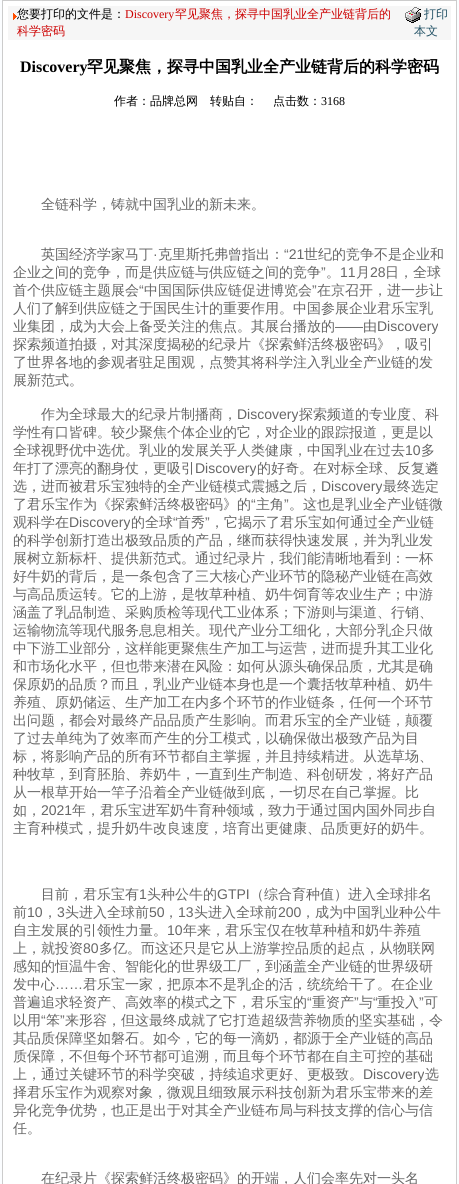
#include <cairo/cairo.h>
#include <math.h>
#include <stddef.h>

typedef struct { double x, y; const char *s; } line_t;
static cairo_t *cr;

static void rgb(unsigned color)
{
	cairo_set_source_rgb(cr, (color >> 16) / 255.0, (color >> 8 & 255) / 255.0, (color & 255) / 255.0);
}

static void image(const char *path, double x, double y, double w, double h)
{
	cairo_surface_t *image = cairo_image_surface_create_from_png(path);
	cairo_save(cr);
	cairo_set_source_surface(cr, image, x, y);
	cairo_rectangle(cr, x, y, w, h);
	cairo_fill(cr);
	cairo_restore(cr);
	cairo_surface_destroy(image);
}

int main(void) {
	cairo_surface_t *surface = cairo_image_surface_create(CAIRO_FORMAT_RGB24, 459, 1184);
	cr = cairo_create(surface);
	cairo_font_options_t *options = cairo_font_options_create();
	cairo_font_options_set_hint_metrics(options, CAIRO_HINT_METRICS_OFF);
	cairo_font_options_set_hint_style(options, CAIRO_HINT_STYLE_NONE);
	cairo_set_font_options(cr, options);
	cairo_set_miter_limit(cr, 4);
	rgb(0xfbfdff);
	cairo_paint(cr);
	rgb(0xffffff);
	cairo_rectangle(cr, 2.5, 0.5, 454, 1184);
	cairo_fill_preserve(cr);
	rgb(0xcccccc);
	cairo_set_line_width(cr, 1);
	cairo_stroke(cr);
	rgb(0xf6f6f6);
	cairo_rectangle(cr, 8, 6, 443, 34);
	cairo_fill(cr);
	image("img/1.png", 13, 13, 4, 7);
	image("img/2.png", 405, 7, 16, 16);
	cairo_select_font_face(cr, "WenQuanYi Zen Hei Medium", CAIRO_FONT_SLANT_NORMAL, CAIRO_FONT_WEIGHT_NORMAL);
	cairo_set_font_size(cr, 12);
	rgb(0x000000);
	cairo_move_to(cr, 17, 18);
	cairo_show_text(cr, "您要打印的文件是：");
	cairo_select_font_face(cr, "Liberation Serif", CAIRO_FONT_SLANT_NORMAL, CAIRO_FONT_WEIGHT_NORMAL);
	rgb(0xcc0000);
	cairo_move_to(cr, 125, 18);
	cairo_show_text(cr, "Discovery");
	cairo_select_font_face(cr, "WenQuanYi Zen Hei Medium", CAIRO_FONT_SLANT_NORMAL, CAIRO_FONT_WEIGHT_NORMAL);
	cairo_move_to(cr, 175, 18);
	cairo_show_text(cr, "罕见聚焦，探寻中国乳业全产业链背后的");
	cairo_move_to(cr, 17, 35);
	cairo_show_text(cr, "科学密码");
	rgb(0x205064);
	cairo_move_to(cr, 424, 18);
	cairo_show_text(cr, "打印");
	cairo_move_to(cr, 414, 35);
	cairo_show_text(cr, "本文");
	cairo_select_font_face(cr, "Liberation Serif", CAIRO_FONT_SLANT_NORMAL, CAIRO_FONT_WEIGHT_BOLD);
	cairo_set_font_size(cr, 16);
	rgb(0x000000);
	cairo_move_to(cr, 20, 72);
	cairo_show_text(cr, "Discovery");
	cairo_select_font_face(cr, "WenQuanYi Zen Hei", CAIRO_FONT_SLANT_NORMAL, CAIRO_FONT_WEIGHT_BOLD);
	cairo_move_to(cr, 87, 72);
	cairo_show_text(cr, "罕见聚焦，探寻中国乳业全产业链背后的科学密码");
	cairo_select_font_face(cr, "WenQuanYi Zen Hei Medium", CAIRO_FONT_SLANT_NORMAL, CAIRO_FONT_WEIGHT_NORMAL);
	cairo_set_font_size(cr, 12);
	{
		static const line_t items[] = {
			{114, 105, "作者：品牌总网"},
			{210, 105, "转贴自："},
			{273, 105, "点击数："},
		};
		for (size_t i = 0; i < sizeof items / sizeof *items; i++) {
			cairo_move_to(cr, items[i].x, items[i].y);
			cairo_show_text(cr, items[i].s);
		}
	}
	cairo_select_font_face(cr, "Liberation Serif", CAIRO_FONT_SLANT_NORMAL, CAIRO_FONT_WEIGHT_NORMAL);
	cairo_move_to(cr, 321, 105);
	cairo_show_text(cr, "3168");
	cairo_select_font_face(cr, "WenQuanYi Zen Hei Medium", CAIRO_FONT_SLANT_NORMAL, CAIRO_FONT_WEIGHT_NORMAL);
	cairo_set_font_size(cr, 14);
	rgb(0x666666);
	cairo_move_to(cr, 41, 209);
	cairo_show_text(cr, "全链科学，铸就中国乳业的新未来。");
	cairo_move_to(cr, 41, 259);
	cairo_show_text(cr, "英国经济学家马丁");
	cairo_select_font_face(cr, "Liberation Sans", CAIRO_FONT_SLANT_NORMAL, CAIRO_FONT_WEIGHT_NORMAL);
	cairo_move_to(cr, 153, 259);
	cairo_show_text(cr, "·");
	cairo_select_font_face(cr, "WenQuanYi Zen Hei Medium", CAIRO_FONT_SLANT_NORMAL, CAIRO_FONT_WEIGHT_NORMAL);
	cairo_move_to(cr, 158, 259);
	cairo_show_text(cr, "克里斯托弗曾指出：");
	cairo_select_font_face(cr, "Liberation Sans", CAIRO_FONT_SLANT_NORMAL, CAIRO_FONT_WEIGHT_NORMAL);
	cairo_move_to(cr, 284, 259);
	cairo_show_text(cr, "“21");
	cairo_select_font_face(cr, "WenQuanYi Zen Hei Medium", CAIRO_FONT_SLANT_NORMAL, CAIRO_FONT_WEIGHT_NORMAL);
	cairo_move_to(cr, 304, 259);
	cairo_show_text(cr, "世纪的竞争不是企业和");
	cairo_move_to(cr, 13, 277);
	cairo_show_text(cr, "企业之间的竞争，而是供应链与供应链之间的竞争");
	cairo_select_font_face(cr, "Liberation Sans", CAIRO_FONT_SLANT_NORMAL, CAIRO_FONT_WEIGHT_NORMAL);
	cairo_move_to(cr, 321, 277);
	cairo_show_text(cr, "”");
	cairo_select_font_face(cr, "WenQuanYi Zen Hei Medium", CAIRO_FONT_SLANT_NORMAL, CAIRO_FONT_WEIGHT_NORMAL);
	cairo_move_to(cr, 326, 277);
	cairo_show_text(cr, "。");
	cairo_select_font_face(cr, "Liberation Sans", CAIRO_FONT_SLANT_NORMAL, CAIRO_FONT_WEIGHT_NORMAL);
	cairo_move_to(cr, 340, 277);
	cairo_show_text(cr, "11");
	cairo_select_font_face(cr, "WenQuanYi Zen Hei Medium", CAIRO_FONT_SLANT_NORMAL, CAIRO_FONT_WEIGHT_NORMAL);
	cairo_move_to(cr, 356, 277);
	cairo_show_text(cr, "月");
	cairo_select_font_face(cr, "Liberation Sans", CAIRO_FONT_SLANT_NORMAL, CAIRO_FONT_WEIGHT_NORMAL);
	cairo_move_to(cr, 370, 277);
	cairo_show_text(cr, "28");
	cairo_select_font_face(cr, "WenQuanYi Zen Hei Medium", CAIRO_FONT_SLANT_NORMAL, CAIRO_FONT_WEIGHT_NORMAL);
	cairo_move_to(cr, 385, 277);
	cairo_show_text(cr, "日，全球");
	cairo_move_to(cr, 13, 295);
	cairo_show_text(cr, "首个供应链主题展会");
	cairo_select_font_face(cr, "Liberation Sans", CAIRO_FONT_SLANT_NORMAL, CAIRO_FONT_WEIGHT_NORMAL);
	cairo_move_to(cr, 139, 295);
	cairo_show_text(cr, "“");
	cairo_select_font_face(cr, "WenQuanYi Zen Hei Medium", CAIRO_FONT_SLANT_NORMAL, CAIRO_FONT_WEIGHT_NORMAL);
	cairo_move_to(cr, 144, 295);
	cairo_show_text(cr, "中国国际供应链促进博览会");
	cairo_select_font_face(cr, "Liberation Sans", CAIRO_FONT_SLANT_NORMAL, CAIRO_FONT_WEIGHT_NORMAL);
	cairo_move_to(cr, 312, 295);
	cairo_show_text(cr, "”");
	cairo_select_font_face(cr, "WenQuanYi Zen Hei Medium", CAIRO_FONT_SLANT_NORMAL, CAIRO_FONT_WEIGHT_NORMAL);
	{
		static const line_t items[] = {
			{317, 295, "在京召开，进一步让"},
			{13, 313, "人们了解到供应链之于国民生计的重要作用。中国参展企业君乐宝乳"},
			{13, 331, "业集团，成为大会上备受关注的焦点。其展台播放的"},
		};
		for (size_t i = 0; i < sizeof items / sizeof *items; i++) {
			cairo_move_to(cr, items[i].x, items[i].y);
			cairo_show_text(cr, items[i].s);
		}
	}
	cairo_select_font_face(cr, "Liberation Sans", CAIRO_FONT_SLANT_NORMAL, CAIRO_FONT_WEIGHT_NORMAL);
	cairo_move_to(cr, 335, 331);
	cairo_show_text(cr, "——");
	cairo_select_font_face(cr, "WenQuanYi Zen Hei Medium", CAIRO_FONT_SLANT_NORMAL, CAIRO_FONT_WEIGHT_NORMAL);
	cairo_move_to(cr, 363, 331);
	cairo_show_text(cr, "由");
	cairo_select_font_face(cr, "Liberation Sans", CAIRO_FONT_SLANT_NORMAL, CAIRO_FONT_WEIGHT_NORMAL);
	cairo_move_to(cr, 377, 331);
	cairo_show_text(cr, "Discovery");
	cairo_select_font_face(cr, "WenQuanYi Zen Hei Medium", CAIRO_FONT_SLANT_NORMAL, CAIRO_FONT_WEIGHT_NORMAL);
	{
		static const line_t items[] = {
			{13, 349, "探索频道拍摄，对其深度揭秘的纪录片《探索鲜活终极密码》，吸引"},
			{13, 367, "了世界各地的参观者驻足围观，点赞其将科学注入乳业全产业链的发"},
			{13, 385, "展新范式。"},
			{41, 419, "作为全球最大的纪录片制播商，"},
		};
		for (size_t i = 0; i < sizeof items / sizeof *items; i++) {
			cairo_move_to(cr, items[i].x, items[i].y);
			cairo_show_text(cr, items[i].s);
		}
	}
	cairo_select_font_face(cr, "Liberation Sans", CAIRO_FONT_SLANT_NORMAL, CAIRO_FONT_WEIGHT_NORMAL);
	cairo_move_to(cr, 237, 419);
	cairo_show_text(cr, "Discovery");
	cairo_select_font_face(cr, "WenQuanYi Zen Hei Medium", CAIRO_FONT_SLANT_NORMAL, CAIRO_FONT_WEIGHT_NORMAL);
	{
		static const line_t items[] = {
			{299, 419, "探索频道的专业度、科"},
			{13, 437, "学性有口皆碑。较少聚焦个体企业的它，对企业的跟踪报道，更是以"},
			{13, 455, "全球视野优中选优。乳业的发展关乎人类健康，中国乳业在过去"},
		};
		for (size_t i = 0; i < sizeof items / sizeof *items; i++) {
			cairo_move_to(cr, items[i].x, items[i].y);
			cairo_show_text(cr, items[i].s);
		}
	}
	cairo_select_font_face(cr, "Liberation Sans", CAIRO_FONT_SLANT_NORMAL, CAIRO_FONT_WEIGHT_NORMAL);
	cairo_move_to(cr, 405, 455);
	cairo_show_text(cr, "10");
	cairo_select_font_face(cr, "WenQuanYi Zen Hei Medium", CAIRO_FONT_SLANT_NORMAL, CAIRO_FONT_WEIGHT_NORMAL);
	cairo_move_to(cr, 421, 455);
	cairo_show_text(cr, "多");
	cairo_move_to(cr, 13, 473);
	cairo_show_text(cr, "年打了漂亮的翻身仗，更吸引");
	cairo_select_font_face(cr, "Liberation Sans", CAIRO_FONT_SLANT_NORMAL, CAIRO_FONT_WEIGHT_NORMAL);
	cairo_move_to(cr, 195, 473);
	cairo_show_text(cr, "Discovery");
	cairo_select_font_face(cr, "WenQuanYi Zen Hei Medium", CAIRO_FONT_SLANT_NORMAL, CAIRO_FONT_WEIGHT_NORMAL);
	cairo_move_to(cr, 257, 473);
	cairo_show_text(cr, "的好奇。在对标全球、反复遴");
	cairo_move_to(cr, 13, 491);
	cairo_show_text(cr, "选，进而被君乐宝独特的全产业链模式震撼之后，");
	cairo_select_font_face(cr, "Liberation Sans", CAIRO_FONT_SLANT_NORMAL, CAIRO_FONT_WEIGHT_NORMAL);
	cairo_move_to(cr, 321, 491);
	cairo_show_text(cr, "Discovery");
	cairo_select_font_face(cr, "WenQuanYi Zen Hei Medium", CAIRO_FONT_SLANT_NORMAL, CAIRO_FONT_WEIGHT_NORMAL);
	cairo_move_to(cr, 383, 491);
	cairo_show_text(cr, "最终选定");
	cairo_move_to(cr, 13, 509);
	cairo_show_text(cr, "了君乐宝作为《探索鲜活终极密码》的");
	cairo_select_font_face(cr, "Liberation Sans", CAIRO_FONT_SLANT_NORMAL, CAIRO_FONT_WEIGHT_NORMAL);
	cairo_move_to(cr, 251, 509);
	cairo_show_text(cr, "“");
	cairo_select_font_face(cr, "WenQuanYi Zen Hei Medium", CAIRO_FONT_SLANT_NORMAL, CAIRO_FONT_WEIGHT_NORMAL);
	cairo_move_to(cr, 256, 509);
	cairo_show_text(cr, "主角");
	cairo_select_font_face(cr, "Liberation Sans", CAIRO_FONT_SLANT_NORMAL, CAIRO_FONT_WEIGHT_NORMAL);
	cairo_move_to(cr, 284, 509);
	cairo_show_text(cr, "”");
	cairo_select_font_face(cr, "WenQuanYi Zen Hei Medium", CAIRO_FONT_SLANT_NORMAL, CAIRO_FONT_WEIGHT_NORMAL);
	cairo_move_to(cr, 289, 509);
	cairo_show_text(cr, "。这也是乳业全产业链微");
	cairo_move_to(cr, 13, 527);
	cairo_show_text(cr, "观科学在");
	cairo_select_font_face(cr, "Liberation Sans", CAIRO_FONT_SLANT_NORMAL, CAIRO_FONT_WEIGHT_NORMAL);
	cairo_move_to(cr, 69, 527);
	cairo_show_text(cr, "Discovery");
	cairo_select_font_face(cr, "WenQuanYi Zen Hei Medium", CAIRO_FONT_SLANT_NORMAL, CAIRO_FONT_WEIGHT_NORMAL);
	cairo_move_to(cr, 131, 527);
	cairo_show_text(cr, "的全球");
	cairo_select_font_face(cr, "Liberation Sans", CAIRO_FONT_SLANT_NORMAL, CAIRO_FONT_WEIGHT_NORMAL);
	cairo_move_to(cr, 173, 527);
	cairo_show_text(cr, "“");
	cairo_select_font_face(cr, "WenQuanYi Zen Hei Medium", CAIRO_FONT_SLANT_NORMAL, CAIRO_FONT_WEIGHT_NORMAL);
	cairo_move_to(cr, 177, 527);
	cairo_show_text(cr, "首秀");
	cairo_select_font_face(cr, "Liberation Sans", CAIRO_FONT_SLANT_NORMAL, CAIRO_FONT_WEIGHT_NORMAL);
	cairo_move_to(cr, 205, 527);
	cairo_show_text(cr, "”");
	cairo_select_font_face(cr, "WenQuanYi Zen Hei Medium", CAIRO_FONT_SLANT_NORMAL, CAIRO_FONT_WEIGHT_NORMAL);
	{
		static const line_t items[] = {
			{210, 527, "，它揭示了君乐宝如何通过全产业链"},
			{13, 545, "的科学创新打造出极致品质的产品，继而获得快速发展，并为乳业发"},
			{13, 563, "展树立新标杆、提供新范式。通过纪录片，我们能清晰地看到：一杯"},
			{13, 581, "好牛奶的背后，是一条包含了三大核心产业环节的隐秘产业链在高效"},
			{13, 599, "与高品质运转。它的上游，是牧草种植、奶牛饲育等农业生产；中游"},
			{13, 617, "涵盖了乳品制造、采购质检等现代工业体系；下游则与渠道、行销、"},
			{13, 635, "运输物流等现代服务息息相关。现代产业分工细化，大部分乳企只做"},
			{13, 653, "中下游工业部分，这样能更聚焦生产加工与运营，进而提升其工业化"},
			{13, 671, "和市场化水平，但也带来潜在风险：如何从源头确保品质，尤其是确"},
			{13, 689, "保原奶的品质？而且，乳业产业链本身也是一个囊括牧草种植、奶牛"},
			{13, 707, "养殖、原奶储运、生产加工在内多个环节的作业链条，任何一个环节"},
			{13, 725, "出问题，都会对最终产品品质产生影响。而君乐宝的全产业链，颠覆"},
			{13, 743, "了过去单纯为了效率而产生的分工模式，以确保做出极致产品为目"},
			{13, 761, "标，将影响产品的所有环节都自主掌握，并且持续精进。从选草场、"},
			{13, 779, "种牧草，到育胚胎、养奶牛，一直到生产制造、科创研发，将好产品"},
			{13, 797, "从一根草开始一竿子沿着全产业链做到底，一切尽在自己掌握。比"},
			{13, 815, "如，"},
		};
		for (size_t i = 0; i < sizeof items / sizeof *items; i++) {
			cairo_move_to(cr, items[i].x, items[i].y);
			cairo_show_text(cr, items[i].s);
		}
	}
	cairo_select_font_face(cr, "Liberation Sans", CAIRO_FONT_SLANT_NORMAL, CAIRO_FONT_WEIGHT_NORMAL);
	cairo_move_to(cr, 41, 815);
	cairo_show_text(cr, "2021");
	cairo_select_font_face(cr, "WenQuanYi Zen Hei Medium", CAIRO_FONT_SLANT_NORMAL, CAIRO_FONT_WEIGHT_NORMAL);
	{
		static const line_t items[] = {
			{72, 815, "年，君乐宝进军奶牛育种领域，致力于通过国内国外同步自"},
			{13, 833, "主育种模式，提升奶牛改良速度，培育出更健康、品质更好的奶牛。"},
			{41, 899, "目前，君乐宝有"},
		};
		for (size_t i = 0; i < sizeof items / sizeof *items; i++) {
			cairo_move_to(cr, items[i].x, items[i].y);
			cairo_show_text(cr, items[i].s);
		}
	}
	cairo_select_font_face(cr, "Liberation Sans", CAIRO_FONT_SLANT_NORMAL, CAIRO_FONT_WEIGHT_NORMAL);
	cairo_move_to(cr, 139, 899);
	cairo_show_text(cr, "1");
	cairo_select_font_face(cr, "WenQuanYi Zen Hei Medium", CAIRO_FONT_SLANT_NORMAL, CAIRO_FONT_WEIGHT_NORMAL);
	cairo_move_to(cr, 147, 899);
	cairo_show_text(cr, "头种公牛的");
	cairo_select_font_face(cr, "Liberation Sans", CAIRO_FONT_SLANT_NORMAL, CAIRO_FONT_WEIGHT_NORMAL);
	cairo_move_to(cr, 217, 899);
	cairo_show_text(cr, "GTPI");
	cairo_select_font_face(cr, "WenQuanYi Zen Hei Medium", CAIRO_FONT_SLANT_NORMAL, CAIRO_FONT_WEIGHT_NORMAL);
	cairo_move_to(cr, 250, 899);
	cairo_show_text(cr, "（综合育种值）进入全球排名");
	cairo_move_to(cr, 13, 917);
	cairo_show_text(cr, "前");
	cairo_select_font_face(cr, "Liberation Sans", CAIRO_FONT_SLANT_NORMAL, CAIRO_FONT_WEIGHT_NORMAL);
	cairo_move_to(cr, 27, 917);
	cairo_show_text(cr, "10");
	cairo_select_font_face(cr, "WenQuanYi Zen Hei Medium", CAIRO_FONT_SLANT_NORMAL, CAIRO_FONT_WEIGHT_NORMAL);
	cairo_move_to(cr, 43, 917);
	cairo_show_text(cr, "，");
	cairo_select_font_face(cr, "Liberation Sans", CAIRO_FONT_SLANT_NORMAL, CAIRO_FONT_WEIGHT_NORMAL);
	cairo_move_to(cr, 57, 917);
	cairo_show_text(cr, "3");
	cairo_select_font_face(cr, "WenQuanYi Zen Hei Medium", CAIRO_FONT_SLANT_NORMAL, CAIRO_FONT_WEIGHT_NORMAL);
	cairo_move_to(cr, 65, 917);
	cairo_show_text(cr, "头进入全球前");
	cairo_select_font_face(cr, "Liberation Sans", CAIRO_FONT_SLANT_NORMAL, CAIRO_FONT_WEIGHT_NORMAL);
	cairo_move_to(cr, 149, 917);
	cairo_show_text(cr, "50");
	cairo_select_font_face(cr, "WenQuanYi Zen Hei Medium", CAIRO_FONT_SLANT_NORMAL, CAIRO_FONT_WEIGHT_NORMAL);
	cairo_move_to(cr, 164, 917);
	cairo_show_text(cr, "，");
	cairo_select_font_face(cr, "Liberation Sans", CAIRO_FONT_SLANT_NORMAL, CAIRO_FONT_WEIGHT_NORMAL);
	cairo_move_to(cr, 178, 917);
	cairo_show_text(cr, "13");
	cairo_select_font_face(cr, "WenQuanYi Zen Hei Medium", CAIRO_FONT_SLANT_NORMAL, CAIRO_FONT_WEIGHT_NORMAL);
	cairo_move_to(cr, 194, 917);
	cairo_show_text(cr, "头进入全球前");
	cairo_select_font_face(cr, "Liberation Sans", CAIRO_FONT_SLANT_NORMAL, CAIRO_FONT_WEIGHT_NORMAL);
	cairo_move_to(cr, 278, 917);
	cairo_show_text(cr, "200");
	cairo_select_font_face(cr, "WenQuanYi Zen Hei Medium", CAIRO_FONT_SLANT_NORMAL, CAIRO_FONT_WEIGHT_NORMAL);
	cairo_move_to(cr, 301, 917);
	cairo_show_text(cr, "，成为中国乳业种公牛");
	cairo_move_to(cr, 13, 935);
	cairo_show_text(cr, "自主发展的引领性力量。");
	cairo_select_font_face(cr, "Liberation Sans", CAIRO_FONT_SLANT_NORMAL, CAIRO_FONT_WEIGHT_NORMAL);
	cairo_move_to(cr, 167, 935);
	cairo_show_text(cr, "10");
	cairo_select_font_face(cr, "WenQuanYi Zen Hei Medium", CAIRO_FONT_SLANT_NORMAL, CAIRO_FONT_WEIGHT_NORMAL);
	cairo_move_to(cr, 183, 935);
	cairo_show_text(cr, "年来，君乐宝仅在牧草种植和奶牛养殖");
	cairo_move_to(cr, 13, 953);
	cairo_show_text(cr, "上，就投资");
	cairo_select_font_face(cr, "Liberation Sans", CAIRO_FONT_SLANT_NORMAL, CAIRO_FONT_WEIGHT_NORMAL);
	cairo_move_to(cr, 83, 953);
	cairo_show_text(cr, "80");
	cairo_select_font_face(cr, "WenQuanYi Zen Hei Medium", CAIRO_FONT_SLANT_NORMAL, CAIRO_FONT_WEIGHT_NORMAL);
	{
		static const line_t items[] = {
			{99, 953, "多亿。而这还只是它从上游掌控品质的起点，从物联网"},
			{13, 971, "感知的恒温牛舍、智能化的世界级工厂，到涵盖全产业链的世界级研"},
			{13, 989, "发中心"},
		};
		for (size_t i = 0; i < sizeof items / sizeof *items; i++) {
			cairo_move_to(cr, items[i].x, items[i].y);
			cairo_show_text(cr, items[i].s);
		}
	}
	cairo_select_font_face(cr, "Liberation Sans", CAIRO_FONT_SLANT_NORMAL, CAIRO_FONT_WEIGHT_NORMAL);
	cairo_move_to(cr, 55, 989);
	cairo_show_text(cr, "……");
	cairo_select_font_face(cr, "WenQuanYi Zen Hei Medium", CAIRO_FONT_SLANT_NORMAL, CAIRO_FONT_WEIGHT_NORMAL);
	cairo_move_to(cr, 83, 989);
	cairo_show_text(cr, "君乐宝一家，把原本不是乳企的活，统统给干了。在企业");
	cairo_move_to(cr, 13, 1007);
	cairo_show_text(cr, "普遍追求轻资产、高效率的模式之下，君乐宝的");
	cairo_select_font_face(cr, "Liberation Sans", CAIRO_FONT_SLANT_NORMAL, CAIRO_FONT_WEIGHT_NORMAL);
	cairo_move_to(cr, 307, 1007);
	cairo_show_text(cr, "“");
	cairo_select_font_face(cr, "WenQuanYi Zen Hei Medium", CAIRO_FONT_SLANT_NORMAL, CAIRO_FONT_WEIGHT_NORMAL);
	cairo_move_to(cr, 312, 1007);
	cairo_show_text(cr, "重资产");
	cairo_select_font_face(cr, "Liberation Sans", CAIRO_FONT_SLANT_NORMAL, CAIRO_FONT_WEIGHT_NORMAL);
	cairo_move_to(cr, 354, 1007);
	cairo_show_text(cr, "”");
	cairo_select_font_face(cr, "WenQuanYi Zen Hei Medium", CAIRO_FONT_SLANT_NORMAL, CAIRO_FONT_WEIGHT_NORMAL);
	cairo_move_to(cr, 359, 1007);
	cairo_show_text(cr, "与");
	cairo_select_font_face(cr, "Liberation Sans", CAIRO_FONT_SLANT_NORMAL, CAIRO_FONT_WEIGHT_NORMAL);
	cairo_move_to(cr, 373, 1007);
	cairo_show_text(cr, "“");
	cairo_select_font_face(cr, "WenQuanYi Zen Hei Medium", CAIRO_FONT_SLANT_NORMAL, CAIRO_FONT_WEIGHT_NORMAL);
	cairo_move_to(cr, 377, 1007);
	cairo_show_text(cr, "重投入");
	cairo_select_font_face(cr, "Liberation Sans", CAIRO_FONT_SLANT_NORMAL, CAIRO_FONT_WEIGHT_NORMAL);
	cairo_move_to(cr, 419, 1007);
	cairo_show_text(cr, "”");
	cairo_select_font_face(cr, "WenQuanYi Zen Hei Medium", CAIRO_FONT_SLANT_NORMAL, CAIRO_FONT_WEIGHT_NORMAL);
	cairo_move_to(cr, 424, 1007);
	cairo_show_text(cr, "可");
	cairo_move_to(cr, 13, 1025);
	cairo_show_text(cr, "以用");
	cairo_select_font_face(cr, "Liberation Sans", CAIRO_FONT_SLANT_NORMAL, CAIRO_FONT_WEIGHT_NORMAL);
	cairo_move_to(cr, 41, 1025);
	cairo_show_text(cr, "“");
	cairo_select_font_face(cr, "WenQuanYi Zen Hei Medium", CAIRO_FONT_SLANT_NORMAL, CAIRO_FONT_WEIGHT_NORMAL);
	cairo_move_to(cr, 46, 1025);
	cairo_show_text(cr, "笨");
	cairo_select_font_face(cr, "Liberation Sans", CAIRO_FONT_SLANT_NORMAL, CAIRO_FONT_WEIGHT_NORMAL);
	cairo_move_to(cr, 60, 1025);
	cairo_show_text(cr, "”");
	cairo_select_font_face(cr, "WenQuanYi Zen Hei Medium", CAIRO_FONT_SLANT_NORMAL, CAIRO_FONT_WEIGHT_NORMAL);
	{
		static const line_t items[] = {
			{65, 1025, "来形容，但这最终成就了它打造超级营养物质的坚实基础，令"},
			{13, 1043, "其品质保障坚如磐石。如今，它的每一滴奶，都源于全产业链的高品"},
			{13, 1061, "质保障，不但每个环节都可追溯，而且每个环节都在自主可控的基础"},
			{13, 1079, "上，通过关键环节的科学突破，持续追求更好、更极致。"},
		};
		for (size_t i = 0; i < sizeof items / sizeof *items; i++) {
			cairo_move_to(cr, items[i].x, items[i].y);
			cairo_show_text(cr, items[i].s);
		}
	}
	cairo_select_font_face(cr, "Liberation Sans", CAIRO_FONT_SLANT_NORMAL, CAIRO_FONT_WEIGHT_NORMAL);
	cairo_move_to(cr, 363, 1079);
	cairo_show_text(cr, "Discovery");
	cairo_select_font_face(cr, "WenQuanYi Zen Hei Medium", CAIRO_FONT_SLANT_NORMAL, CAIRO_FONT_WEIGHT_NORMAL);
	{
		static const line_t items[] = {
			{425, 1079, "选"},
			{13, 1097, "择君乐宝作为观察对象，微观且细致展示科技创新为君乐宝带来的差"},
			{13, 1115, "异化竞争优势，也正是出于对其全产业链布局与科技支撑的信心与信"},
			{13, 1133, "任。"},
			{41, 1183, "在纪录片《探索鲜活终极密码》的开端，人们会率先对一头名"},
		};
		for (size_t i = 0; i < sizeof items / sizeof *items; i++) {
			cairo_move_to(cr, items[i].x, items[i].y);
			cairo_show_text(cr, items[i].s);
		}
	}
	cairo_surface_write_to_png(surface, "page.png");
	cairo_font_options_destroy(options);
	cairo_destroy(cr);
	cairo_surface_destroy(surface);
	return 0;
}
